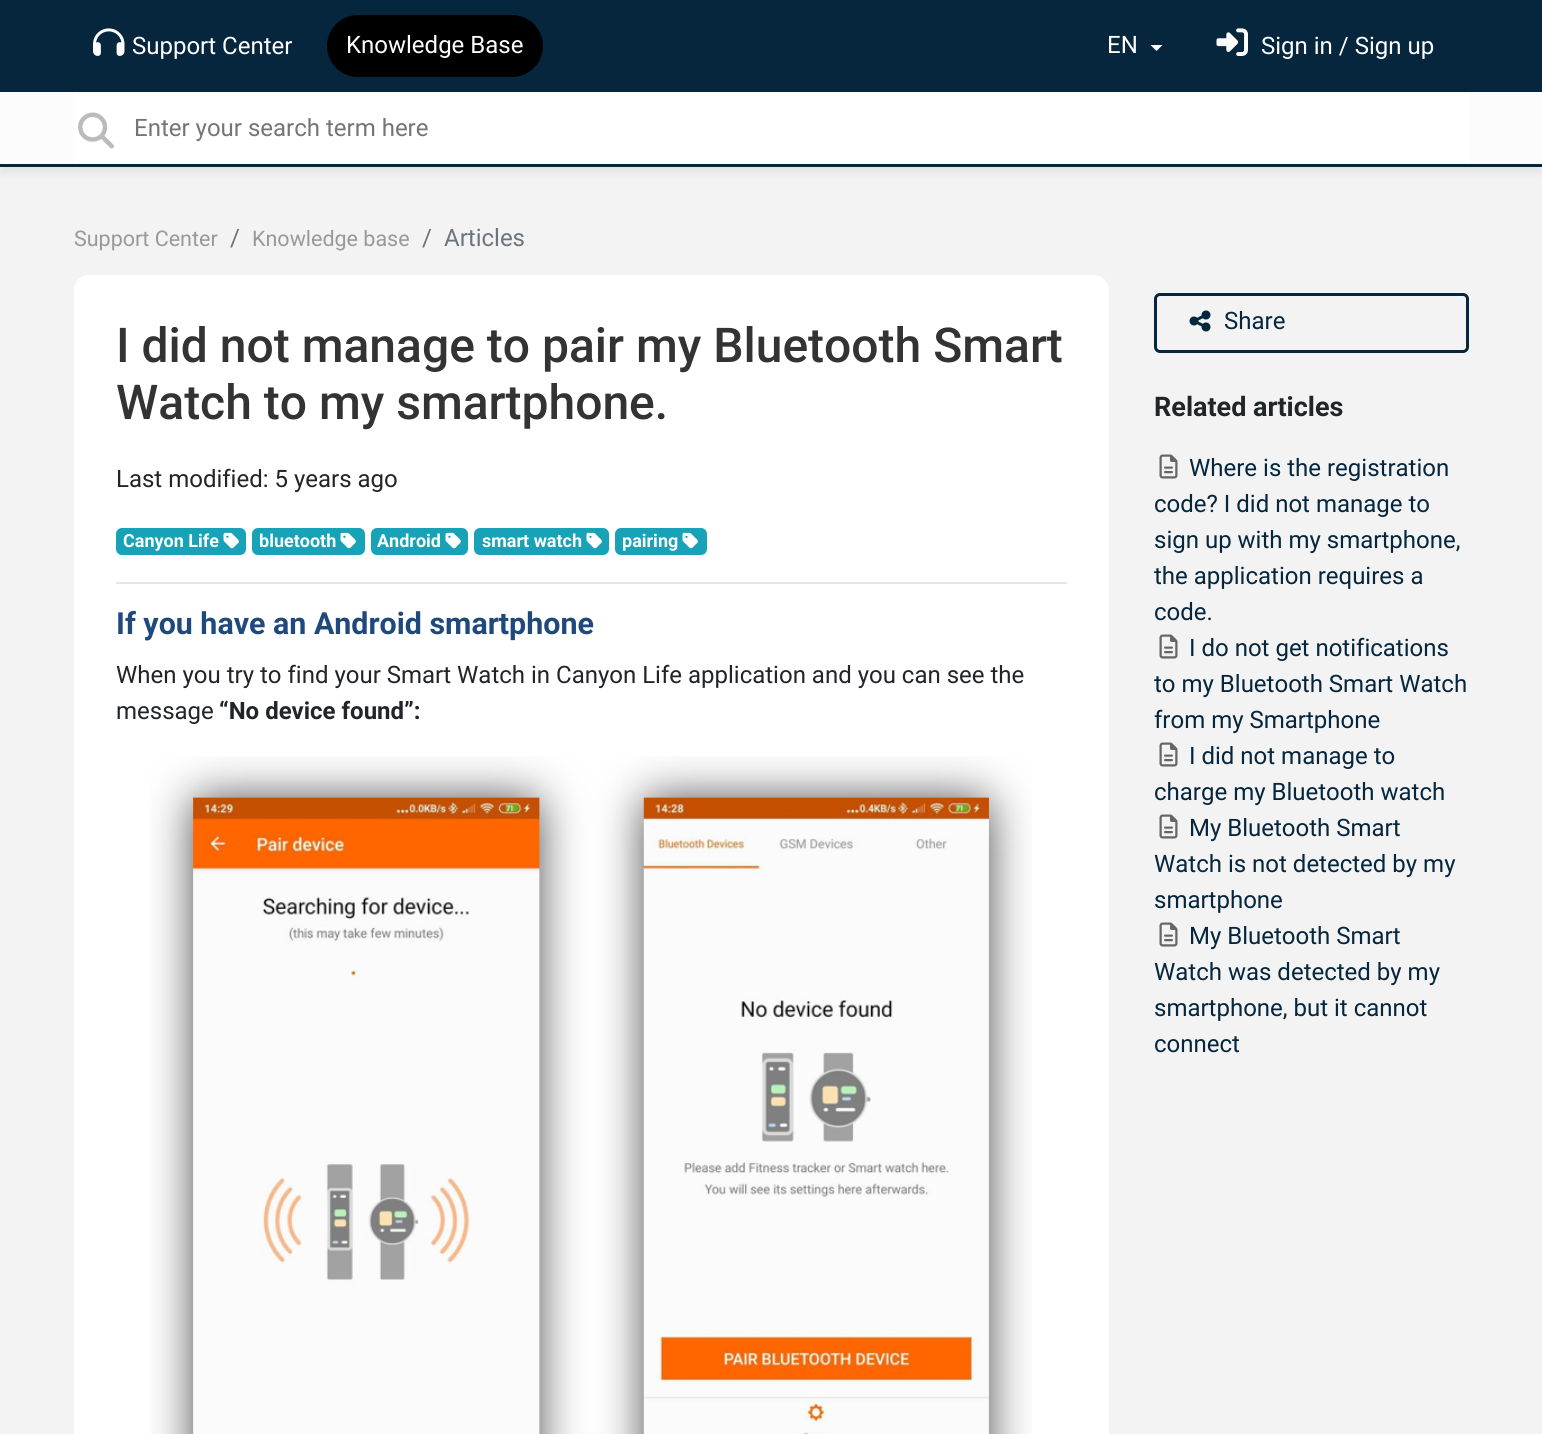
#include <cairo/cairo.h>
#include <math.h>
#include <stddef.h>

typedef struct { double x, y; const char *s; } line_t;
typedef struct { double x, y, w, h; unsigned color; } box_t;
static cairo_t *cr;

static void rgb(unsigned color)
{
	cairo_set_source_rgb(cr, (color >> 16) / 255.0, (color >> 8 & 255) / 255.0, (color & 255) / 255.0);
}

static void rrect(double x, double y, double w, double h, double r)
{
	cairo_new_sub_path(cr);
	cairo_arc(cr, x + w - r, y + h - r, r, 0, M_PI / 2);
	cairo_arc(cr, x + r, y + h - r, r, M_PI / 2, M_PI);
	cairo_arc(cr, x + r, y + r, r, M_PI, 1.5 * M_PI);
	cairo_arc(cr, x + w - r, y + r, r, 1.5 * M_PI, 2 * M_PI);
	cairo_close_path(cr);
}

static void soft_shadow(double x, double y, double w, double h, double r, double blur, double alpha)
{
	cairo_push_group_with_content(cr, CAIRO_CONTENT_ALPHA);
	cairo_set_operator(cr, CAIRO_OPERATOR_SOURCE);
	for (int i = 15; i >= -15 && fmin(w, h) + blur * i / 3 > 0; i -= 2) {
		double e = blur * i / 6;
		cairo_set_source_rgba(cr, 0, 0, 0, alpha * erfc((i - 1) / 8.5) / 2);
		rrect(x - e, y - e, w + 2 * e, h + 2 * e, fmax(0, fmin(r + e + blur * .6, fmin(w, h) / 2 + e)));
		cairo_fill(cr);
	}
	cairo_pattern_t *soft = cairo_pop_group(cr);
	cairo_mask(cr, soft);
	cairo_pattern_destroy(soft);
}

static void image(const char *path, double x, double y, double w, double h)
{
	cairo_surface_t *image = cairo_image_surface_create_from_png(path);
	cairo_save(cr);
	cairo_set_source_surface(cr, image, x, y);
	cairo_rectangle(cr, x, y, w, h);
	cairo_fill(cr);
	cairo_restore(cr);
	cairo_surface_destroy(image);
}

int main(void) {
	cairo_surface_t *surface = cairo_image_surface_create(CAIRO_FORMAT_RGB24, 1542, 1434);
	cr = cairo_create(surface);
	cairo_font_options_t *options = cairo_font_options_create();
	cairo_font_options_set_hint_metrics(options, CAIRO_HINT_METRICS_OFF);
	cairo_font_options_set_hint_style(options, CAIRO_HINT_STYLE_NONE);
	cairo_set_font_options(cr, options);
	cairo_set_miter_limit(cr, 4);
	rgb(0xf3f3f3);
	cairo_paint(cr);
	rgb(0x05263d);
	cairo_rectangle(cr, 0, 0, 1542, 92);
	cairo_fill(cr);
	image("img/1.png", 93, 28, 32, 28);
	rgb(0x000000);
	rrect(327, 15, 216, 62, 31);
	cairo_fill(cr);
	rgb(0xffffff);
	cairo_new_path(cr);
	cairo_move_to(cr, 1150.5, 45);
	cairo_line_to(cr, 1162.5, 45);
	cairo_line_to(cr, 1156.5, 51);
	cairo_close_path(cr);
	cairo_fill(cr);
	image("img/2.png", 1216, 28, 32, 28);
	rgb(0x646464);
	soft_shadow(0, 99, 1542, 75, 0, 4, 0.1);
	{
		static const box_t items[] = {
			{0, 92, 1542, 72, 0xfcfcfc},
			{0, 164, 1542, 3, 0x05263d},
			{74, 92, 1395, 72, 0xffffff},
		};
		for (size_t i = 0; i < sizeof items / sizeof *items; i++) {
			rgb(items[i].color);
			cairo_rectangle(cr, items[i].x, items[i].y, items[i].w, items[i].h);
			cairo_fill(cr);
		}
	}
	image("img/3.png", 78, 112, 36, 37);
	rrect(74, 275, 1035, 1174, 15);
	cairo_fill(cr);
	rgb(0x17a2b8);
	rrect(116, 528, 130, 27, 6);
	cairo_fill(cr);
	image("img/4.png", 223, 532, 16, 17);
	rrect(252, 528, 113, 27, 6);
	cairo_fill(cr);
	image("img/4.png", 340, 532, 16, 17);
	rrect(371, 528, 97, 27, 6);
	cairo_fill(cr);
	image("img/4.png", 445, 532, 16, 17);
	rrect(474, 528, 135, 27, 6);
	cairo_fill(cr);
	image("img/4.png", 586, 532, 16, 17);
	rrect(615, 528, 92, 27, 6);
	cairo_fill(cr);
	image("img/4.png", 682, 532, 16, 17);
	rgb(0xe6e6e6);
	cairo_rectangle(cr, 116, 582, 951, 2);
	cairo_fill(cr);
	image("img/5.png", 150, 756, 882, 678);
	rrect(1155.5, 294.5, 312, 57, 4.5);
	rgb(0x05263d);
	cairo_set_line_width(cr, 3);
	cairo_stroke(cr);
	image("img/6.png", 1189, 310, 22, 22);
	image("img/7.png", 1159, 454, 19, 25);
	image("img/7.png", 1159, 634, 19, 25);
	image("img/7.png", 1159, 742, 19, 25);
	image("img/7.png", 1159, 814, 19, 25);
	image("img/7.png", 1159, 922, 19, 25);
	cairo_select_font_face(cr, "Roboto", CAIRO_FONT_SLANT_NORMAL, CAIRO_FONT_WEIGHT_NORMAL);
	cairo_set_font_size(cr, 24);
	rgb(0xffffff);
	{
		static const line_t items[] = {
			{132, 54, "Support Center"},
			{346, 53, "Knowledge Base"},
			{1107, 53, "EN"},
			{1261, 54, "Sign in / Sign up"},
		};
		for (size_t i = 0; i < sizeof items / sizeof *items; i++) {
			cairo_move_to(cr, items[i].x, items[i].y);
			cairo_show_text(cr, items[i].s);
		}
	}
	rgb(0x757575);
	cairo_move_to(cr, 134, 136);
	cairo_show_text(cr, "Enter your search term here");
	cairo_set_font_size(cr, 21.5);
	rgb(0x999999);
	cairo_move_to(cr, 74, 246);
	cairo_show_text(cr, "Support Center");
	cairo_set_font_size(cr, 24);
	rgb(0x6c757d);
	cairo_move_to(cr, 230, 246);
	cairo_show_text(cr, "/");
	cairo_set_font_size(cr, 21.5);
	rgb(0x999999);
	cairo_move_to(cr, 252, 246);
	cairo_show_text(cr, "Knowledge base");
	cairo_set_font_size(cr, 24);
	rgb(0x6c757d);
	cairo_move_to(cr, 422, 246);
	cairo_show_text(cr, "/");
	cairo_move_to(cr, 444, 246);
	cairo_show_text(cr, "Articles");
	cairo_select_font_face(cr, "Roboto Medium", CAIRO_FONT_SLANT_NORMAL, CAIRO_FONT_WEIGHT_NORMAL);
	cairo_set_font_size(cr, 48);
	rgb(0x333333);
	cairo_move_to(cr, 116, 362);
	cairo_show_text(cr, "I did not manage to pair my Bluetooth Smart");
	cairo_move_to(cr, 116, 419);
	cairo_show_text(cr, "Watch to my smartphone.");
	cairo_select_font_face(cr, "Roboto", CAIRO_FONT_SLANT_NORMAL, CAIRO_FONT_WEIGHT_NORMAL);
	cairo_set_font_size(cr, 24);
	rgb(0x212529);
	cairo_move_to(cr, 116, 487);
	cairo_show_text(cr, "Last modified: 5 years ago");
	cairo_select_font_face(cr, "Roboto", CAIRO_FONT_SLANT_NORMAL, CAIRO_FONT_WEIGHT_BOLD);
	cairo_set_font_size(cr, 18);
	rgb(0xffffff);
	{
		static const line_t items[] = {
			{123, 547, "Canyon Life"},
			{259, 547, "bluetooth"},
			{377, 547, "Android"},
			{482, 547, "smart watch"},
			{622, 547, "pairing"},
		};
		for (size_t i = 0; i < sizeof items / sizeof *items; i++) {
			cairo_move_to(cr, items[i].x, items[i].y);
			cairo_show_text(cr, items[i].s);
		}
	}
	cairo_set_font_size(cr, 30.4);
	rgb(0x1f497d);
	cairo_move_to(cr, 116, 634);
	cairo_show_text(cr, "If you have an Android smartphone");
	cairo_select_font_face(cr, "Roboto", CAIRO_FONT_SLANT_NORMAL, CAIRO_FONT_WEIGHT_NORMAL);
	cairo_set_font_size(cr, 24);
	rgb(0x212529);
	cairo_move_to(cr, 116, 683);
	cairo_show_text(cr, "When you try to find your Smart Watch in Canyon Life application and you can see the");
	cairo_move_to(cr, 116, 719);
	cairo_show_text(cr, "message");
	cairo_select_font_face(cr, "Roboto", CAIRO_FONT_SLANT_NORMAL, CAIRO_FONT_WEIGHT_BOLD);
	cairo_move_to(cr, 219, 719);
	cairo_show_text(cr, "“No device found”:");
	cairo_select_font_face(cr, "Roboto", CAIRO_FONT_SLANT_NORMAL, CAIRO_FONT_WEIGHT_NORMAL);
	rgb(0x05263d);
	cairo_move_to(cr, 1224, 329);
	cairo_show_text(cr, "Share");
	cairo_select_font_face(cr, "Roboto", CAIRO_FONT_SLANT_NORMAL, CAIRO_FONT_WEIGHT_BOLD);
	cairo_set_font_size(cr, 27);
	rgb(0x212529);
	cairo_move_to(cr, 1154, 416);
	cairo_show_text(cr, "Related articles");
	cairo_select_font_face(cr, "Roboto", CAIRO_FONT_SLANT_NORMAL, CAIRO_FONT_WEIGHT_NORMAL);
	cairo_set_font_size(cr, 24);
	rgb(0x05263d);
	{
		static const line_t items[] = {
			{1189, 476, "Where is the registration"},
			{1154, 512, "code? I did not manage to"},
			{1154, 548, "sign up with my smartphone,"},
			{1154, 584, "the application requires a"},
			{1154, 620, "code."},
			{1189, 656, "I do not get notifications"},
			{1154, 692, "to my Bluetooth Smart Watch"},
			{1154, 728, "from my Smartphone"},
			{1189, 764, "I did not manage to"},
			{1154, 800, "charge my Bluetooth watch"},
			{1189, 836, "My Bluetooth Smart"},
			{1154, 872, "Watch is not detected by my"},
			{1154, 908, "smartphone"},
			{1189, 944, "My Bluetooth Smart"},
			{1154, 980, "Watch was detected by my"},
			{1154, 1016, "smartphone, but it cannot"},
			{1154, 1052, "connect"},
		};
		for (size_t i = 0; i < sizeof items / sizeof *items; i++) {
			cairo_move_to(cr, items[i].x, items[i].y);
			cairo_show_text(cr, items[i].s);
		}
	}
	cairo_surface_write_to_png(surface, "page.png");
	cairo_font_options_destroy(options);
	cairo_destroy(cr);
	cairo_surface_destroy(surface);
	return 0;
}
